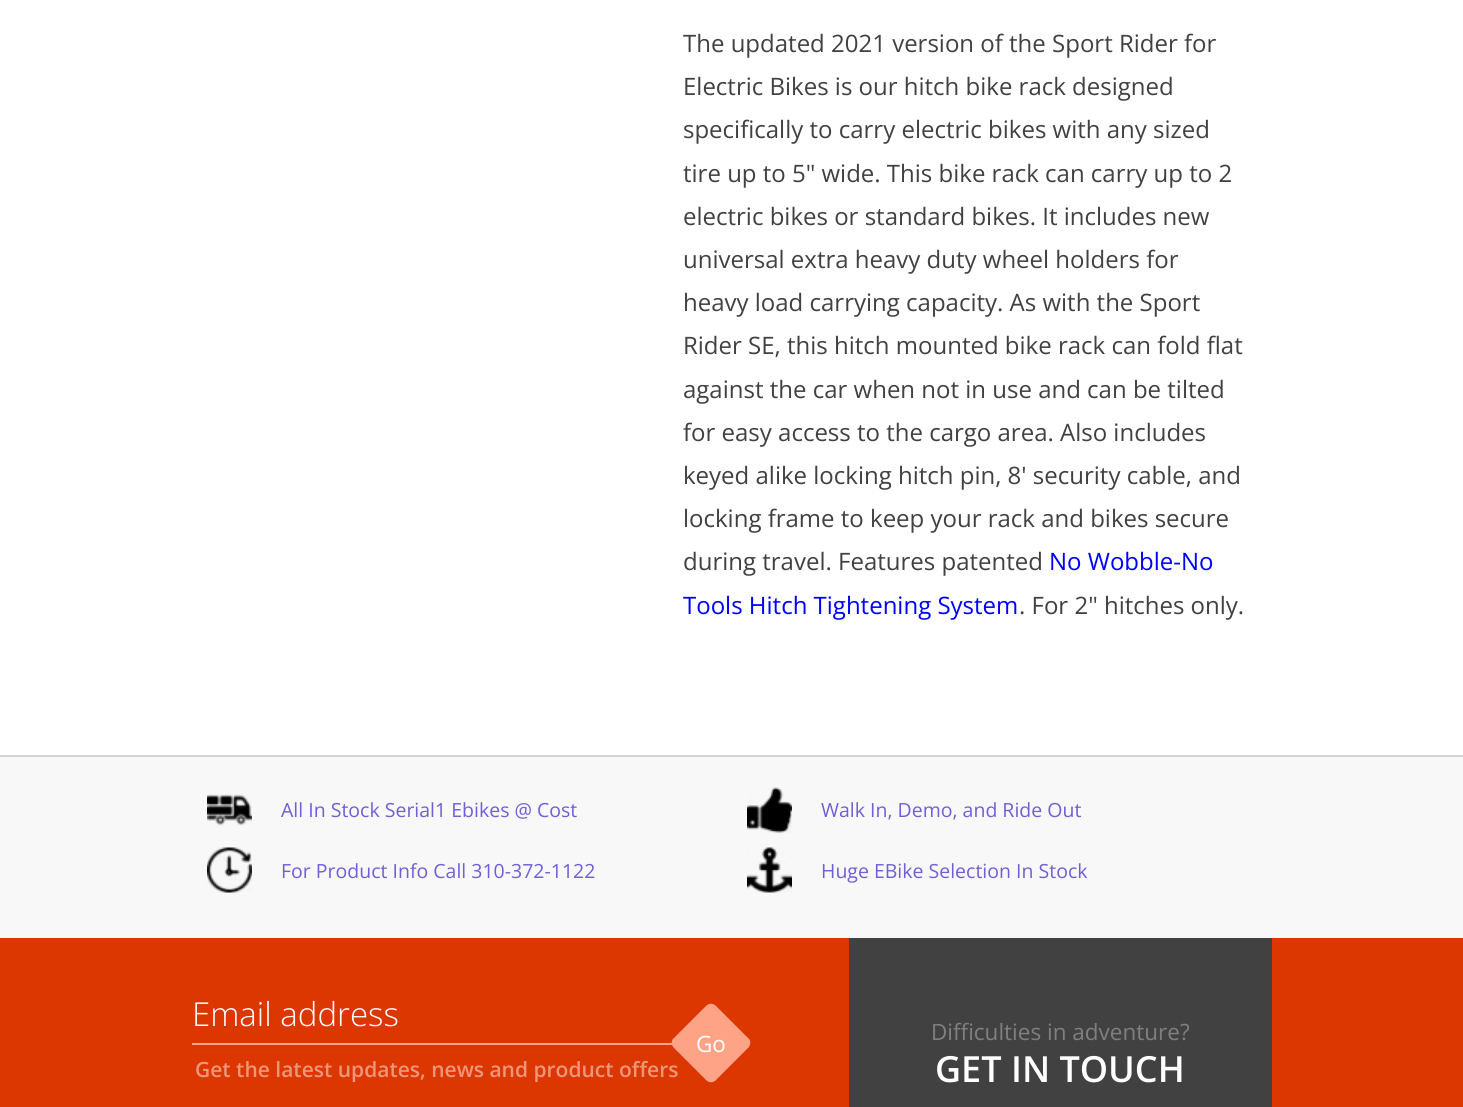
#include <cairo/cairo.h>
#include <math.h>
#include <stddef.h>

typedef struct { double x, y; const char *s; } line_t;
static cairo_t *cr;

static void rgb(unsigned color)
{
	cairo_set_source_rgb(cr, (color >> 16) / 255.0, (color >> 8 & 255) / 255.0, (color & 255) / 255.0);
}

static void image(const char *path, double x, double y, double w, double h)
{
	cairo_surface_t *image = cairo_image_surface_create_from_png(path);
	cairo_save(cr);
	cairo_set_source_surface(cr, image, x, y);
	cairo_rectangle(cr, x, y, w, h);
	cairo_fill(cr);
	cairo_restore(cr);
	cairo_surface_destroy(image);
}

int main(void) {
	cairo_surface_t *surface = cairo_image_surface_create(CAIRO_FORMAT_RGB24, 1463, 1107);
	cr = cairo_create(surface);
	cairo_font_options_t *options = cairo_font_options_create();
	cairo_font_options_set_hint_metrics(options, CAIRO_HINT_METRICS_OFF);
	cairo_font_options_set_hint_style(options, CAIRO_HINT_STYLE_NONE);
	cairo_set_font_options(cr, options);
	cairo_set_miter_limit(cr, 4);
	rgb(0xffffff);
	cairo_paint(cr);
	rgb(0xf8f8f8);
	cairo_rectangle(cr, 0, 757, 1463, 181);
	cairo_fill(cr);
	rgb(0xd5d5d5);
	cairo_rectangle(cr, 0, 755, 1463, 2);
	cairo_fill(cr);
	image("img/1.png", 207, 794, 45, 32);
	image("img/2.png", 747, 787, 45, 46);
	image("img/3.png", 207, 847, 45, 46);
	image("img/4.png", 747, 847, 45, 46);
	rgb(0xdc3700);
	cairo_rectangle(cr, 0, 938, 1463, 169);
	cairo_fill(cr);
	rgb(0xffa387);
	cairo_rectangle(cr, 192, 1043, 489, 2);
	cairo_fill(cr);
	cairo_new_path(cr);
	cairo_move_to(cr, 716, 1006);
	cairo_line_to(cr, 748, 1038);
	cairo_curve_to(cr, 751, 1040, 751, 1045, 748, 1048);
	cairo_line_to(cr, 716, 1080);
	cairo_curve_to(cr, 713, 1083, 709, 1083, 706, 1080);
	cairo_line_to(cr, 674, 1048);
	cairo_curve_to(cr, 671, 1045, 671, 1040, 674, 1038);
	cairo_line_to(cr, 706, 1006);
	cairo_curve_to(cr, 709, 1003, 713, 1003, 716, 1006);
	cairo_close_path(cr);
	cairo_fill(cr);
	rgb(0x414141);
	cairo_rectangle(cr, 849, 938, 423, 169);
	cairo_fill(cr);
	cairo_select_font_face(cr, "Open Sans", CAIRO_FONT_SLANT_NORMAL, CAIRO_FONT_WEIGHT_NORMAL);
	cairo_set_font_size(cr, 24);
	{
		static const line_t items[] = {
			{683, 52, "The updated 2021 version of the Sport Rider for"},
			{683, 95, "Electric Bikes is our hitch bike rack designed"},
			{683, 138, "specifically to carry electric bikes with any sized"},
			{683, 182, "tire up to 5\" wide. This bike rack can carry up to 2"},
			{683, 225, "electric bikes or standard bikes. It includes new"},
			{683, 268, "universal extra heavy duty wheel holders for"},
			{683, 311, "heavy load carrying capacity. As with the Sport"},
			{683, 354, "Rider SE, this hitch mounted bike rack can fold flat"},
			{683, 398, "against the car when not in use and can be tilted"},
			{683, 441, "for easy access to the cargo area. Also includes"},
			{683, 484, "keyed alike locking hitch pin, 8' security cable, and"},
			{683, 527, "locking frame to keep your rack and bikes secure"},
			{683, 570, "during travel. Features patented"},
		};
		for (size_t i = 0; i < sizeof items / sizeof *items; i++) {
			cairo_move_to(cr, items[i].x, items[i].y);
			cairo_show_text(cr, items[i].s);
		}
	}
	rgb(0x0000ff);
	cairo_move_to(cr, 1049, 570);
	cairo_show_text(cr, "No Wobble-No");
	cairo_move_to(cr, 683, 614);
	cairo_show_text(cr, "Tools Hitch Tightening System");
	rgb(0x414141);
	cairo_move_to(cr, 1019, 614);
	cairo_show_text(cr, ". For 2\" hitches only.");
	cairo_set_font_size(cr, 19.5);
	rgb(0x6f5fd8);
	{
		static const line_t items[] = {
			{281, 817, "All In Stock Serial1 Ebikes @ Cost"},
			{821, 817, "Walk In, Demo, and Ride Out"},
			{281, 878, "For Product Info Call 310-372-1122"},
			{821, 878, "Huge EBike Selection In Stock"},
		};
		for (size_t i = 0; i < sizeof items / sizeof *items; i++) {
			cairo_move_to(cr, items[i].x, items[i].y);
			cairo_show_text(cr, items[i].s);
		}
	}
	cairo_select_font_face(cr, "Open Sans Light", CAIRO_FONT_SLANT_NORMAL, CAIRO_FONT_WEIGHT_NORMAL);
	cairo_set_font_size(cr, 33);
	rgb(0xfffefe);
	cairo_move_to(cr, 192, 1026);
	cairo_show_text(cr, "Email address");
	cairo_select_font_face(cr, "Open Sans", CAIRO_FONT_SLANT_NORMAL, CAIRO_FONT_WEIGHT_NORMAL);
	cairo_set_font_size(cr, 22.5);
	cairo_move_to(cr, 696, 1052);
	cairo_show_text(cr, "Go");
	cairo_select_font_face(cr, "Open Sans SemiBold", CAIRO_FONT_SLANT_NORMAL, CAIRO_FONT_WEIGHT_NORMAL);
	cairo_set_font_size(cr, 21);
	rgb(0xee967a);
	cairo_move_to(cr, 195, 1077);
	cairo_show_text(cr, "Get the latest updates, news and product offers");
	cairo_select_font_face(cr, "Open Sans", CAIRO_FONT_SLANT_NORMAL, CAIRO_FONT_WEIGHT_NORMAL);
	cairo_set_font_size(cr, 22.5);
	rgb(0x7f7f7f);
	cairo_move_to(cr, 931, 1040);
	cairo_show_text(cr, "Difficulties in adventure?");
	cairo_select_font_face(cr, "Open Sans SemiBold", CAIRO_FONT_SLANT_NORMAL, CAIRO_FONT_WEIGHT_NORMAL);
	cairo_set_font_size(cr, 36);
	rgb(0xfffefe);
	cairo_move_to(cr, 935, 1082);
	cairo_show_text(cr, "GET IN TOUCH");
	cairo_surface_write_to_png(surface, "page.png");
	cairo_font_options_destroy(options);
	cairo_destroy(cr);
	cairo_surface_destroy(surface);
	return 0;
}
